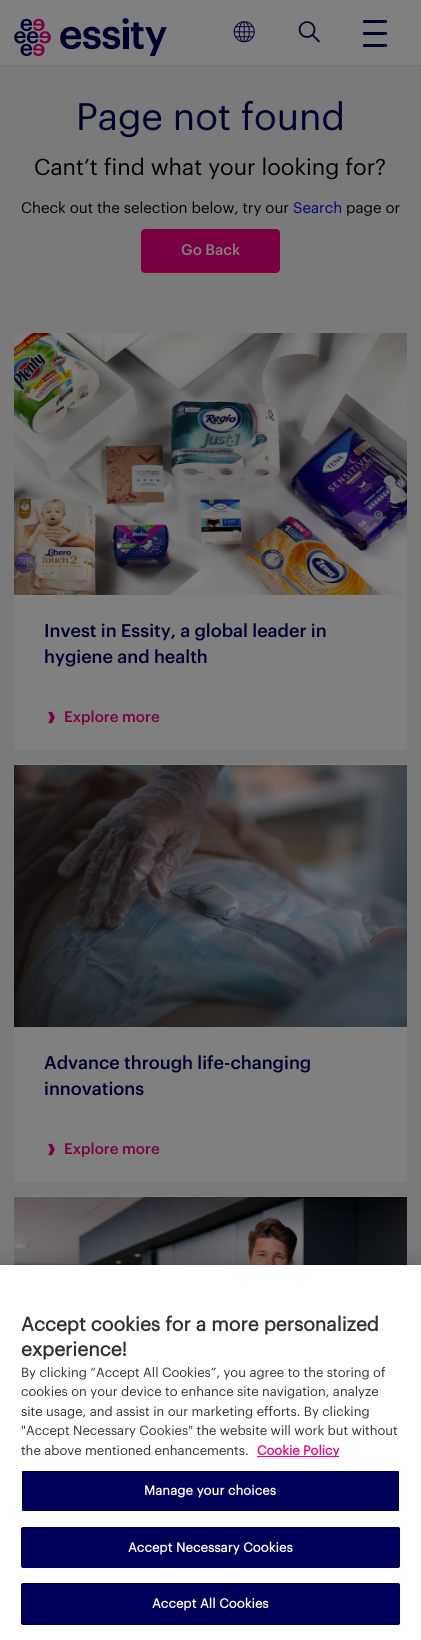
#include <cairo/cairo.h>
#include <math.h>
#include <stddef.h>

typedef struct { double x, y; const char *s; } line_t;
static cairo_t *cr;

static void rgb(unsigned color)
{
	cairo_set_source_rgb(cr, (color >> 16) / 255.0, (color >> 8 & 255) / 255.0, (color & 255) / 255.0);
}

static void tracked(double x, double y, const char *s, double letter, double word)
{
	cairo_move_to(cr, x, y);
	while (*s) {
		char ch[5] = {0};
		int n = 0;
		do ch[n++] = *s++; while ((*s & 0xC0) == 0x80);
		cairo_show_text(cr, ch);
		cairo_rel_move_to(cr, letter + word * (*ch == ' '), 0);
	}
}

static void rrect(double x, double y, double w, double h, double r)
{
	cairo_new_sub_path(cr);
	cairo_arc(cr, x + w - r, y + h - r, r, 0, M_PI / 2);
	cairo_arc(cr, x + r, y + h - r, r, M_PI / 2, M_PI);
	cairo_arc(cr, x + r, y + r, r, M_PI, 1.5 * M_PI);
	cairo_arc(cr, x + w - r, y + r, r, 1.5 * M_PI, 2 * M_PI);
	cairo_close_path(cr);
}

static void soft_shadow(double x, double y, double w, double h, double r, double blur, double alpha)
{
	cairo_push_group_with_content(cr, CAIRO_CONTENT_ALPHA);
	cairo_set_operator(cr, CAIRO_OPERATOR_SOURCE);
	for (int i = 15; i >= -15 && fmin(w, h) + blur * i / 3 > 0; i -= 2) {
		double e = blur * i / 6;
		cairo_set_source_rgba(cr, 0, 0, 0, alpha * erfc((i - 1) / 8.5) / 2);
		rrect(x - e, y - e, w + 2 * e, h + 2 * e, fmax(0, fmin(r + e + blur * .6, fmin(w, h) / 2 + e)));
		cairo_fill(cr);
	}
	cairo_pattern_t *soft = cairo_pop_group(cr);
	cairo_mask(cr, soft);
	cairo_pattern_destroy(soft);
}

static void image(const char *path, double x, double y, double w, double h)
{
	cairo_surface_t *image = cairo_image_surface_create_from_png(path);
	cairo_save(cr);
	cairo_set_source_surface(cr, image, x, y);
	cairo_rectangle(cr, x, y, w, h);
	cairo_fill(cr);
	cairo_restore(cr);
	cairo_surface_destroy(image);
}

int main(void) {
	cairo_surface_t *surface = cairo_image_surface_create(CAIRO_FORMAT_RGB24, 421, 1640);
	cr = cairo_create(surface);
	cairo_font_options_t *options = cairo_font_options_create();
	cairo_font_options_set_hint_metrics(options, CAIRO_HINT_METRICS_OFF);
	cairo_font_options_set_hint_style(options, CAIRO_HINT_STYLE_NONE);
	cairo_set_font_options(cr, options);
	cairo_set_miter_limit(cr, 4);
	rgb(0x7a7a7a);
	cairo_paint(cr);
	rgb(0x808080);
	cairo_rectangle(cr, 0, 0, 421, 65);
	cairo_fill(cr);
	rgb(0x747474);
	cairo_rectangle(cr, 0, 65, 421, 1);
	cairo_fill(cr);
	image("img/1.png", 14, 18, 153, 38);
	image("img/2.png", 233, 21, 22, 22);
	image("img/3.png", 298, 21, 22, 22);
	rgb(0x00002d);
	rrect(363, 20, 24, 3, 1);
	cairo_fill(cr);
	rrect(363, 32, 24, 3, 1);
	cairo_fill(cr);
	rrect(363, 44, 24, 3, 1);
	cairo_fill(cr);
	rgb(0x7b0041);
	rrect(141, 229, 139, 44, 4);
	cairo_fill(cr);
	rgb(0x808080);
	cairo_rectangle(cr, 14, 595, 393, 155);
	cairo_fill(cr);
	image("img/4.png", 14, 333, 393, 262);
	image("img/5.png", 48, 711, 7, 13);
	cairo_rectangle(cr, 14, 764, 393, 418);
	cairo_fill(cr);
	image("img/6.png", 14, 765, 393, 262);
	image("img/5.png", 48, 1143, 7, 13);
	cairo_rectangle(cr, 14, 1196, 393, 1);
	cairo_fill(cr);
	image("img/7.png", 14, 1197, 393, 68);
	rgb(0x000000);
	soft_shadow(0, 1265, 421, 375, 0, 9, 0.2);
	rgb(0xffffff);
	cairo_rectangle(cr, 0, 1265, 421, 375);
	cairo_fill(cr);
	rgb(0xf50082);
	cairo_rectangle(cr, 257, 1456, 82, 1);
	cairo_fill(cr);
	rgb(0x00005a);
	rrect(21.5, 1470.5, 378, 41, 1.5);
	cairo_fill_preserve(cr);
	rgb(0xffffff);
	cairo_set_line_width(cr, 1);
	cairo_stroke(cr);
	rgb(0x00005a);
	rrect(21.5, 1527.5, 378, 40, 1.5);
	cairo_fill_preserve(cr);
	cairo_stroke(cr);
	rrect(21.5, 1583.5, 378, 41, 1.5);
	cairo_fill_preserve(cr);
	cairo_stroke(cr);
	cairo_select_font_face(cr, "Graphik", CAIRO_FONT_SLANT_NORMAL, CAIRO_FONT_WEIGHT_NORMAL);
	cairo_set_font_size(cr, 37.5);
	rgb(0x00002d);
	cairo_move_to(cr, 76, 130);
	cairo_show_text(cr, "Page not found");
	cairo_set_font_size(cr, 22.5);
	rgb(0x000000);
	cairo_move_to(cr, 34, 175);
	cairo_show_text(cr, "Cant’t find what your looking for?");
	cairo_set_font_size(cr, 15);
	cairo_move_to(cr, 21, 213);
	cairo_show_text(cr, "Check out the selection below, try our");
	rgb(0x000077);
	cairo_move_to(cr, 293, 213);
	cairo_show_text(cr, "Search");
	rgb(0x000000);
	cairo_move_to(cr, 346, 213);
	cairo_show_text(cr, "page or");
	cairo_select_font_face(cr, "Graphik Medium", CAIRO_FONT_SLANT_NORMAL, CAIRO_FONT_WEIGHT_NORMAL);
	rgb(0x808080);
	cairo_move_to(cr, 181, 255);
	cairo_show_text(cr, "Go Back");
	cairo_set_font_size(cr, 18);
	rgb(0x00002d);
	cairo_move_to(cr, 44, 637);
	cairo_show_text(cr, "Invest in Essity, a global leader in");
	cairo_move_to(cr, 44, 663);
	cairo_show_text(cr, "hygiene and health");
	cairo_set_font_size(cr, 15);
	rgb(0x7b0041);
	cairo_move_to(cr, 64, 722);
	cairo_show_text(cr, "Explore more");
	cairo_set_font_size(cr, 18);
	rgb(0x00002d);
	cairo_move_to(cr, 44, 1069);
	cairo_show_text(cr, "Advance through life-changing");
	cairo_move_to(cr, 44, 1095);
	cairo_show_text(cr, "innovations");
	cairo_set_font_size(cr, 15);
	rgb(0x7b0041);
	cairo_move_to(cr, 64, 1154);
	cairo_show_text(cr, "Explore more");
	cairo_select_font_face(cr, "Graphik", CAIRO_FONT_SLANT_NORMAL, CAIRO_FONT_WEIGHT_BOLD);
	cairo_set_font_size(cr, 19.25);
	rgb(0x303030);
	cairo_move_to(cr, 21, 1331);
	cairo_show_text(cr, "Accept cookies for a more personalized");
	cairo_move_to(cr, 21, 1356);
	cairo_show_text(cr, "experience!");
	cairo_select_font_face(cr, "Graphik", CAIRO_FONT_SLANT_NORMAL, CAIRO_FONT_WEIGHT_NORMAL);
	cairo_set_font_size(cr, 13);
	{
		static const line_t items[] = {
			{21, 1377, "By clicking “Accept All Cookies”, you agree to the storing of"},
			{21, 1396, "cookies on your device to enhance site navigation, analyze"},
			{21, 1416, "site usage, and assist in our marketing efforts. By clicking"},
			{21, 1435, "\"Accept Necessary Cookies\" the website will work but without"},
			{21, 1455, "the above mentioned enhancements."},
		};
		for (size_t i = 0; i < sizeof items / sizeof *items; i++) {
			cairo_move_to(cr, items[i].x, items[i].y);
			cairo_show_text(cr, items[i].s);
		}
	}
	cairo_select_font_face(cr, "Graphik", CAIRO_FONT_SLANT_NORMAL, CAIRO_FONT_WEIGHT_BOLD);
	rgb(0xf50082);
	cairo_move_to(cr, 257, 1455);
	cairo_show_text(cr, "Cookie Policy");
	rgb(0xffffff);
	{
		static const line_t items[] = {
			{144, 1495, "Manage your choices"},
			{128, 1552, "Accept Necessary Cookies"},
			{152, 1608, "Accept All Cookies"},
		};
		for (size_t i = 0; i < sizeof items / sizeof *items; i++) {
			tracked(items[i].x, items[i].y, items[i].s, 0.1, 0);
		}
	}
	cairo_surface_write_to_png(surface, "page.png");
	cairo_font_options_destroy(options);
	cairo_destroy(cr);
	cairo_surface_destroy(surface);
	return 0;
}
